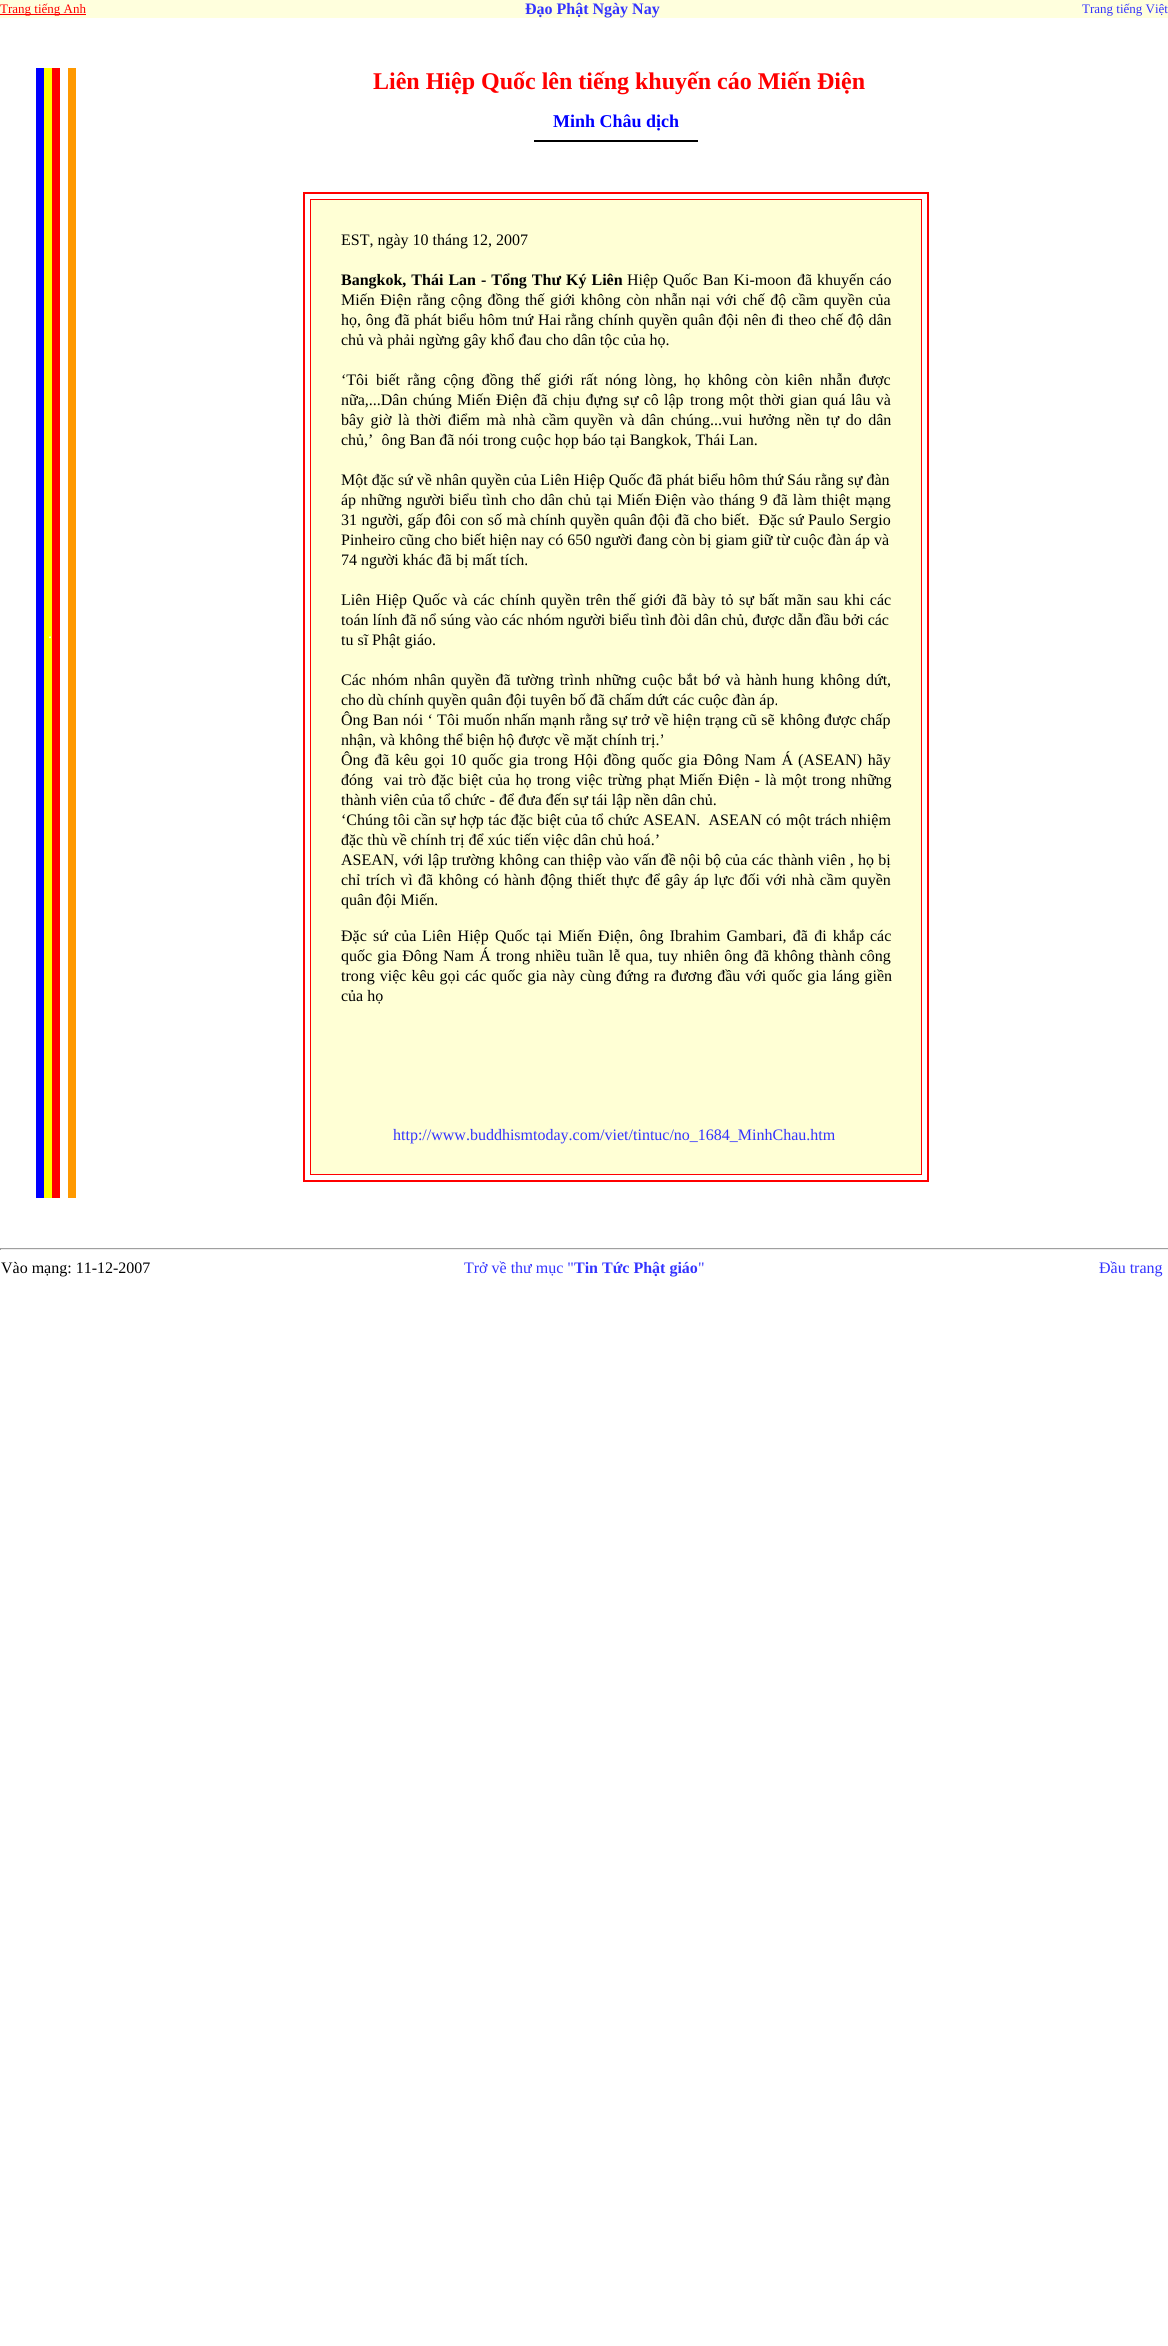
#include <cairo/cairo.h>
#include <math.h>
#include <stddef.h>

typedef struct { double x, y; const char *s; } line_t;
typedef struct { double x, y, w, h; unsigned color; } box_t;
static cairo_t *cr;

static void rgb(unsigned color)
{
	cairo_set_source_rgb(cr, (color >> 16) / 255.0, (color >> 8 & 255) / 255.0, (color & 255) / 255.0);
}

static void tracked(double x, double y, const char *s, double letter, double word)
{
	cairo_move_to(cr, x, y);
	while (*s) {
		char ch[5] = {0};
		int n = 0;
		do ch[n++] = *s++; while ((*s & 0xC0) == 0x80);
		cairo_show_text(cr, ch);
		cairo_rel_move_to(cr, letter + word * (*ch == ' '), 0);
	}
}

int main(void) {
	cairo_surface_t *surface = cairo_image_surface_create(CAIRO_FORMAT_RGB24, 1168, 2346);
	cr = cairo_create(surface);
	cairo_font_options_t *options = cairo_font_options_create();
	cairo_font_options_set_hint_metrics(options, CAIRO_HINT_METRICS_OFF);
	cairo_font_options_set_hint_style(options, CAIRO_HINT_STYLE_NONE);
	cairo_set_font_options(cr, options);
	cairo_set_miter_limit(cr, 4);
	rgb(0xffffff);
	cairo_paint(cr);
	{
		static const box_t items[] = {
			{0, 0, 1168, 18, 0xffffdd},
			{0, 14, 86, 1, 0xff0000},
			{36, 68, 8, 1130, 0x0000ff},
			{44, 68, 8, 1130, 0xffff00},
			{52, 68, 8, 1130, 0xff0000},
			{68, 68, 8, 1130, 0xff9900},
			{534, 140, 164, 2, 0x000000},
		};
		for (size_t i = 0; i < sizeof items / sizeof *items; i++) {
			rgb(items[i].color);
			cairo_rectangle(cr, items[i].x, items[i].y, items[i].w, items[i].h);
			cairo_fill(cr);
		}
	}
	cairo_rectangle(cr, 304, 193, 624, 988);
	rgb(0xff0000);
	cairo_stroke(cr);
	rgb(0xffffd5);
	cairo_rectangle(cr, 310.5, 199.5, 611, 975);
	cairo_fill_preserve(cr);
	rgb(0xff0000);
	cairo_set_line_width(cr, 1);
	cairo_stroke(cr);
	{
		static const box_t items[] = {
			{0, 1248, 1168, 1, 0x9f9f9f},
			{0, 1249, 1168, 1, 0xeeeeee},
			{0, 1248, 1, 2, 0x9f9f9f},
		};
		for (size_t i = 0; i < sizeof items / sizeof *items; i++) {
			rgb(items[i].color);
			cairo_rectangle(cr, items[i].x, items[i].y, items[i].w, items[i].h);
			cairo_fill(cr);
		}
	}
	cairo_select_font_face(cr, "Liberation Serif", CAIRO_FONT_SLANT_NORMAL, CAIRO_FONT_WEIGHT_NORMAL);
	cairo_set_font_size(cr, 13);
	rgb(0xff0000);
	cairo_move_to(cr, 0, 13);
	cairo_show_text(cr, "Trang tiếng Anh");
	cairo_select_font_face(cr, "Liberation Serif", CAIRO_FONT_SLANT_NORMAL, CAIRO_FONT_WEIGHT_BOLD);
	cairo_set_font_size(cr, 16);
	rgb(0x3333ff);
	cairo_move_to(cr, 525, 14);
	cairo_show_text(cr, "Đạo Phật Ngày Nay");
	cairo_select_font_face(cr, "Liberation Serif", CAIRO_FONT_SLANT_NORMAL, CAIRO_FONT_WEIGHT_NORMAL);
	cairo_set_font_size(cr, 13);
	cairo_move_to(cr, 1082, 13);
	cairo_show_text(cr, "Trang tiếng Việt");
	cairo_set_font_size(cr, 16);
	rgb(0xffffff);
	cairo_move_to(cr, 48, 638);
	cairo_show_text(cr, ".");
	cairo_select_font_face(cr, "Liberation Serif", CAIRO_FONT_SLANT_NORMAL, CAIRO_FONT_WEIGHT_BOLD);
	cairo_set_font_size(cr, 24);
	rgb(0xff0000);
	cairo_move_to(cr, 373, 89);
	cairo_show_text(cr, "Liên Hiệp Quốc lên tiếng khuyến cáo Miến Điện");
	cairo_set_font_size(cr, 18);
	rgb(0x0000ff);
	cairo_move_to(cr, 553, 127);
	cairo_show_text(cr, "Minh Châu dịch");
	cairo_select_font_face(cr, "Liberation Serif", CAIRO_FONT_SLANT_NORMAL, CAIRO_FONT_WEIGHT_NORMAL);
	cairo_set_font_size(cr, 16);
	rgb(0x000000);
	cairo_move_to(cr, 341, 245);
	cairo_show_text(cr, "EST, ngày 10 tháng 12, 2007");
	cairo_select_font_face(cr, "Liberation Serif", CAIRO_FONT_SLANT_NORMAL, CAIRO_FONT_WEIGHT_BOLD);
	tracked(341, 285, "Bangkok, Thái Lan - Tổng Thư Ký Liên", 0, 1);
	cairo_select_font_face(cr, "Liberation Serif", CAIRO_FONT_SLANT_NORMAL, CAIRO_FONT_WEIGHT_NORMAL);
	tracked(627, 285, "Hiệp Quốc Ban Ki-moon", 0, 1);
	tracked(797, 285, "đã khuyến cáo", 0, 1);
	tracked(341, 305, "Miến Điện rằng cộng đồng thế giới không còn nhẫn", 0, 1.5);
	tracked(691, 305, "nại với chế độ cầm quyền của", 0, 1.5);
	tracked(341, 325, "họ, ông đã phát biểu hôm tnứ Hai", 0, 0.75);
	tracked(565, 325, "rằng chính quyền quân đội nên đi theo chế độ dân", 0, 0.75);
	cairo_move_to(cr, 341, 345);
	cairo_show_text(cr, "chủ và phải ngừng gây khổ đau cho dân tộc của họ.");
	tracked(341, 385, "‘Tôi biết rằng cộng đồng thế giới rất nóng lòng, họ không còn", 0, 3.4);
	tracked(785, 385, "kiên nhẫn được", 0, 3.4);
	tracked(341, 405, "nữa,...Dân chúng Miến Điện đã chịu đựng sự cô lập", 0, 1.25);
	tracked(690, 405, "trong một thời gian quá lâu và", 0, 1.25);
	tracked(341, 425, "bây giờ là thời điểm mà nhà cầm", 0, 2.5);
	tracked(574, 425, "quyền và dân chúng...vui hưởng nền tự do dân", 0, 2.5);
	cairo_move_to(cr, 341, 445);
	cairo_show_text(cr, "chủ,’  ông Ban đã nói trong cuộc họp báo tại Bangkok, Thái Lan.");
	cairo_move_to(cr, 341, 485);
	cairo_show_text(cr, "Một đặc sứ về nhân quyền của Liên Hiệp Quốc đã phát biểu hôm thứ Sáu rằng sự đàn");
	tracked(341, 505, "áp những người biểu tình cho dân chủ tại Miến", 0, 1);
	tracked(655, 505, "Điện vào tháng 9 đã làm thiệt mạng", 0, 1);
	tracked(341, 525, "31 người, gấp đôi con số mà", 0, 0.5);
	tracked(530, 525, "chính quyền quân đội đã cho biết.  Đặc sứ Paulo Sergio", 0, 0.5);
	cairo_move_to(cr, 341, 545);
	cairo_show_text(cr, "Pinheiro cũng cho biết hiện nay có 650 người đang còn bị giam giữ từ cuộc đàn áp và");
	cairo_move_to(cr, 341, 565);
	cairo_show_text(cr, "74 người khác đã bị mất tích.");
	tracked(341, 605, "Liên Hiệp Quốc và các chính quyền trên thế giới đã bày tỏ sự bất", 0, 1.5);
	tracked(784, 605, "mãn sau khi các", 0, 1.5);
	cairo_move_to(cr, 341, 625);
	cairo_show_text(cr, "toán lính đã nổ súng vào các nhóm người biểu tình đòi dân chủ, được dẫn đầu bởi các");
	cairo_move_to(cr, 341, 645);
	cairo_show_text(cr, "tu sĩ Phật giáo.");
	tracked(341, 685, "Các nhóm nhân quyền đã tường trình những cuộc bắt bớ và hành", 0, 1.75);
	tracked(782, 685, "hung không dứt,", 0, 2);
	cairo_move_to(cr, 341, 705);
	cairo_show_text(cr, "cho dù chính quyền quân đội tuyên bố đã chấm dứt các cuộc đàn áp.");
	tracked(341, 725, "Ông Ban nói ‘ Tôi muốn nhấn mạnh rằng sự trở về hiện trạng cũ sẽ", 0, 0.25);
	cairo_move_to(cr, 780, 725);
	cairo_show_text(cr, "không được chấp");
	cairo_move_to(cr, 341, 745);
	cairo_show_text(cr, "nhận, và không thể biện hộ được về mặt chính trị.’");
	tracked(341, 765, "Ông đã kêu gọi 10 quốc gia trong Hội đồng quốc gia Đông Nam Á", 0, 1.75);
	tracked(798, 765, "(ASEAN) hãy", 0, 1.75);
	tracked(341, 785, "đóng  vai trò đặc biệt của họ trong việc trừng phạt", 0, 1.25);
	tracked(679, 785, "Miến Điện - là một trong những", 0, 1.25);
	cairo_move_to(cr, 341, 805);
	cairo_show_text(cr, "thành viên của tổ chức - để đưa đến sự tái lập nền dân chủ.");
	tracked(341, 825, "‘Chúng tôi cần sự hợp tác đặc biệt của tổ chức ASEAN.  ASEAN có", 0, 0.1);
	cairo_move_to(cr, 786, 825);
	cairo_show_text(cr, "một trách nhiệm");
	cairo_move_to(cr, 341, 845);
	cairo_show_text(cr, "đặc thù về chính trị để xúc tiến việc dân chủ hoá.’");
	tracked(341, 865, "ASEAN, với lập trường không can thiệp vào vấn đề nội bộ của các", 0, 0.3);
	tracked(778, 865, "thành viên , họ bị", 0, 0.3);
	tracked(341, 885, "chỉ trích vì đã không có hành động thiết thực", 0, 1.25);
	tracked(645, 885, "để gây áp lực đối với nhà cầm quyền", 0, 1.25);
	cairo_move_to(cr, 341, 905);
	cairo_show_text(cr, "quân đội Miến.");
	tracked(341, 941, "Đặc sứ của", 0, 2.25);
	tracked(422, 941, "Liên Hiệp Quốc tại Miến Điện, ông Ibrahim Gambari, đã đi khắp", 0, 2.25);
	cairo_move_to(cr, 870, 941);
	cairo_show_text(cr, "các");
	tracked(341, 961, "quốc gia Đông Nam Á trong nhiều tuần lễ qua, tuy nhiên ông", 0, 1.25);
	{
		static const line_t items[] = {
			{754, 961, "đã không thành công"},
			{341, 981, "trong việc kêu gọi các quốc gia này cùng"},
			{616, 981, "đứng ra đương đầu với quốc gia láng giền"},
		};
		for (size_t i = 0; i < sizeof items / sizeof *items; i++) {
			tracked(items[i].x, items[i].y, items[i].s, 0, 1);
		}
	}
	cairo_move_to(cr, 341, 1001);
	cairo_show_text(cr, "của họ");
	rgb(0x3333ff);
	cairo_move_to(cr, 393, 1140);
	cairo_show_text(cr, "http://www.buddhismtoday.com/viet/tintuc/no_1684_MinhChau.htm");
	rgb(0x000000);
	cairo_move_to(cr, 1, 1273);
	cairo_show_text(cr, "Vào mạng: 11-12-2007");
	rgb(0x3333ff);
	cairo_move_to(cr, 464, 1273);
	cairo_show_text(cr, "Trở về thư mục \"");
	cairo_select_font_face(cr, "Liberation Serif", CAIRO_FONT_SLANT_NORMAL, CAIRO_FONT_WEIGHT_BOLD);
	cairo_move_to(cr, 574, 1273);
	cairo_show_text(cr, "Tin Tức Phật giáo");
	cairo_select_font_face(cr, "Liberation Serif", CAIRO_FONT_SLANT_NORMAL, CAIRO_FONT_WEIGHT_NORMAL);
	cairo_move_to(cr, 698, 1273);
	cairo_show_text(cr, "\"");
	cairo_move_to(cr, 1099, 1273);
	cairo_show_text(cr, "Đầu trang");
	cairo_surface_write_to_png(surface, "page.png");
	cairo_font_options_destroy(options);
	cairo_destroy(cr);
	cairo_surface_destroy(surface);
	return 0;
}
